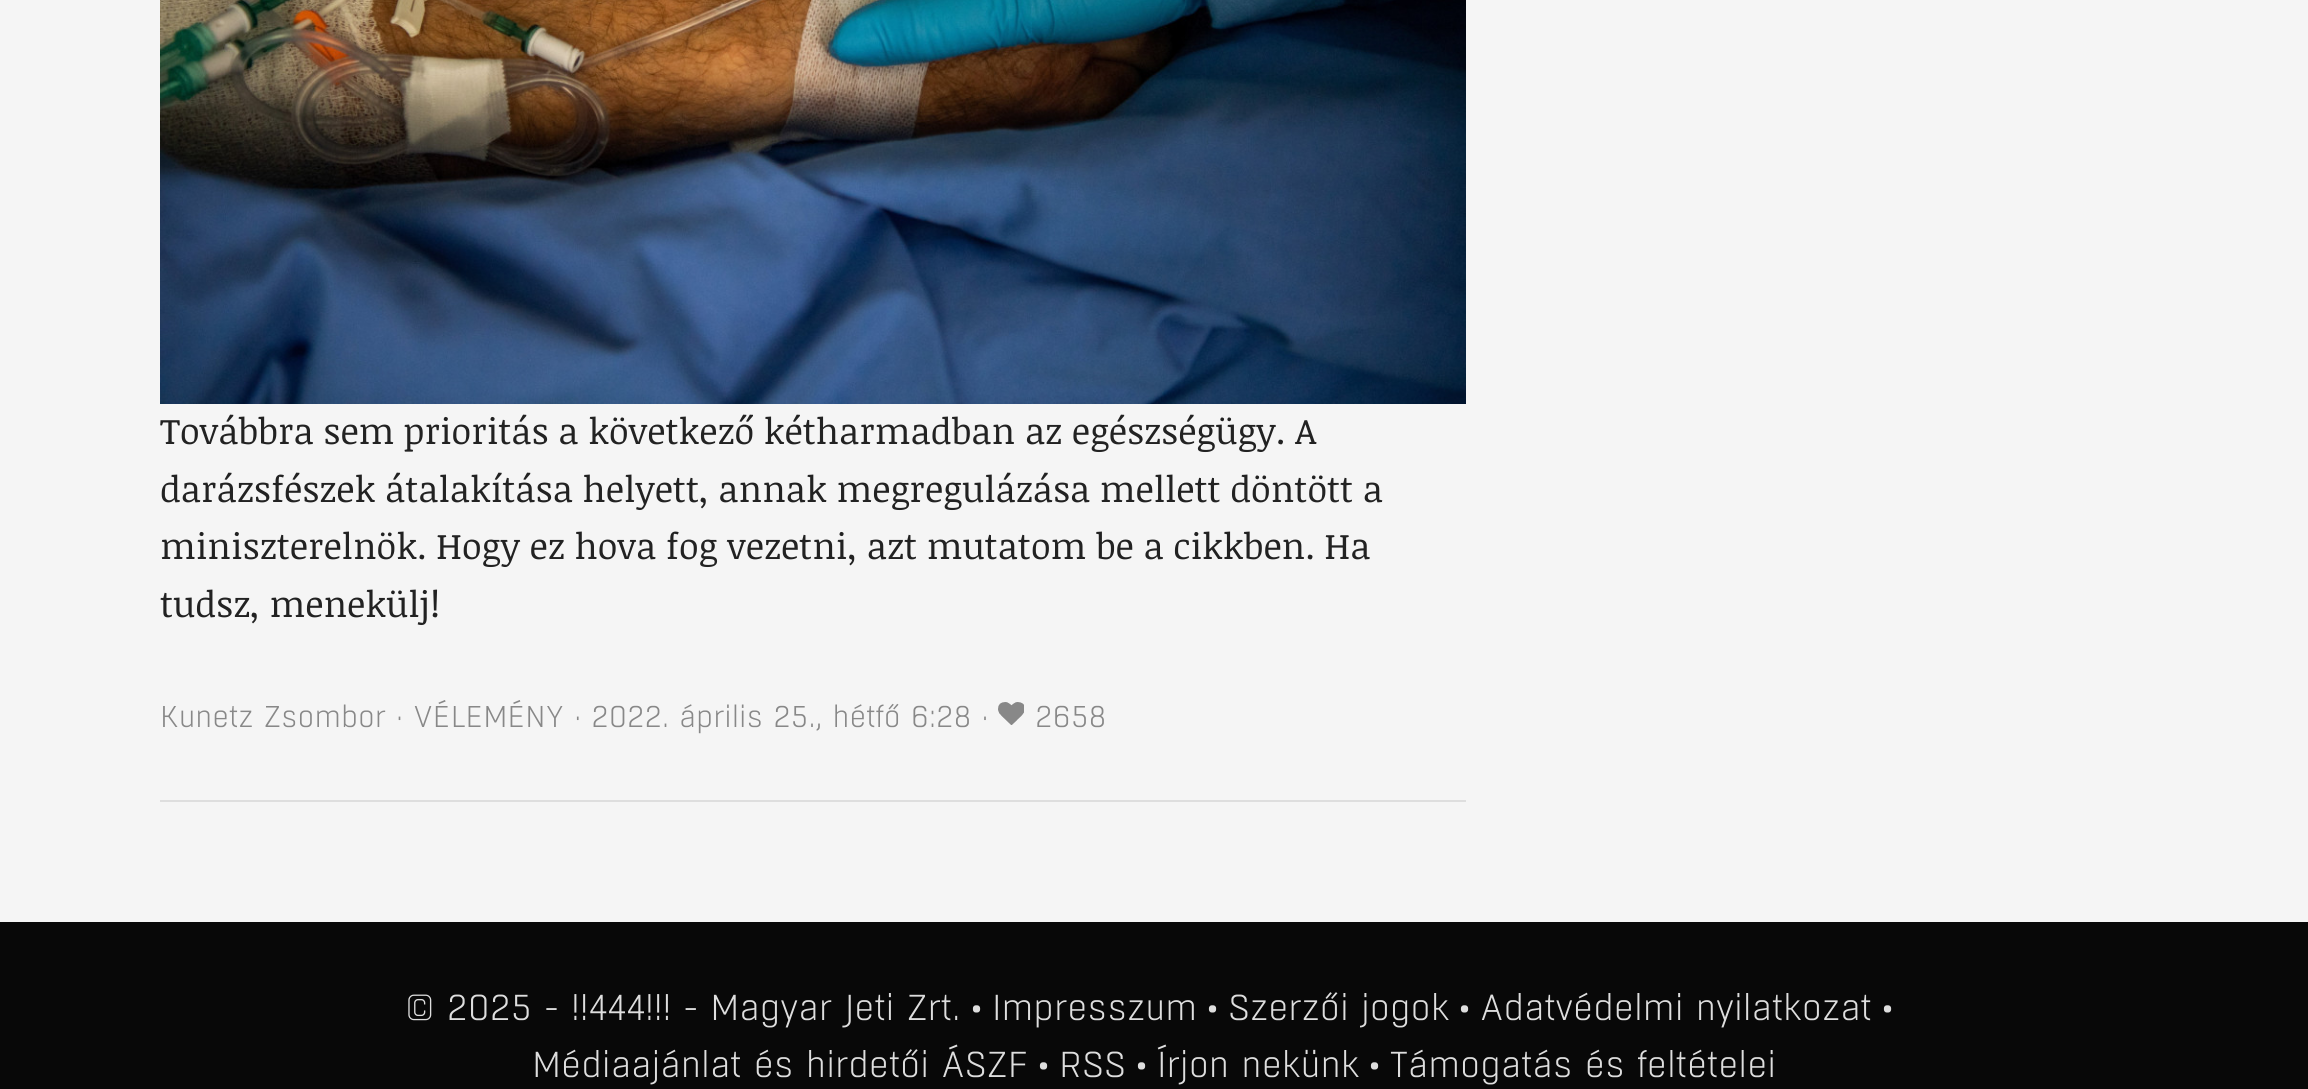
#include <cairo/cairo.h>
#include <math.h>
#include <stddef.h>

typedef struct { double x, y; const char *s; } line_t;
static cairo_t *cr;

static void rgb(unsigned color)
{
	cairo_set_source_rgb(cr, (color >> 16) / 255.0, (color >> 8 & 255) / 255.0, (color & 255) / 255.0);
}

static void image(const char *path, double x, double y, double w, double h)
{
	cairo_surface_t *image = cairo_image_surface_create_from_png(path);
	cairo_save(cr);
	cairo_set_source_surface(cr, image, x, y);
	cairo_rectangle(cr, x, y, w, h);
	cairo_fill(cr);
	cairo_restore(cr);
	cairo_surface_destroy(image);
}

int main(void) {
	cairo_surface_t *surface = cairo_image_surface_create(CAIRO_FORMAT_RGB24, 2308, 1089);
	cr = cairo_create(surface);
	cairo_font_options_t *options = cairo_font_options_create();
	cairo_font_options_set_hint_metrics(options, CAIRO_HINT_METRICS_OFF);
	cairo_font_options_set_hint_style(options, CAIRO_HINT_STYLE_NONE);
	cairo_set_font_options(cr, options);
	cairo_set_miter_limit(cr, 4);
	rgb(0xf5f5f5);
	cairo_paint(cr);
	rgb(0xdedede);
	cairo_rectangle(cr, 160, 800, 1306, 2);
	cairo_fill(cr);
	image("img/1.png", 160, 0, 1306, 404);
	image("img/2.png", 998, 702, 26, 23);
	rgb(0x080808);
	cairo_rectangle(cr, 0, 922, 2308, 167);
	cairo_fill(cr);
	cairo_select_font_face(cr, "Noticia Text", CAIRO_FONT_SLANT_NORMAL, CAIRO_FONT_WEIGHT_NORMAL);
	cairo_set_font_size(cr, 36);
	rgb(0x222222);
	{
		static const line_t items[] = {
			{160, 444, "Továbbra sem prioritás a következő kétharmadban az egészségügy. A"},
			{160, 502, "darázsfészek átalakítása helyett, annak megregulázása mellett döntött a"},
			{160, 559, "miniszterelnök. Hogy ez hova fog vezetni, azt mutatom be a cikkben. Ha"},
			{160, 617, "tudsz, menekülj!"},
		};
		for (size_t i = 0; i < sizeof items / sizeof *items; i++) {
			cairo_move_to(cr, items[i].x, items[i].y);
			cairo_show_text(cr, items[i].s);
		}
	}
	cairo_select_font_face(cr, "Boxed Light", CAIRO_FONT_SLANT_NORMAL, CAIRO_FONT_WEIGHT_NORMAL);
	cairo_set_font_size(cr, 30);
	rgb(0x888888);
	cairo_move_to(cr, 160, 727);
	cairo_show_text(cr, "Kunetz Zsombor · VÉLEMÉNY · 2022. április 25., hétfő 6:28 ·");
	cairo_move_to(cr, 1035, 727);
	cairo_show_text(cr, "2658");
	cairo_set_font_size(cr, 36);
	rgb(0xdedede);
	{
		static const line_t items[] = {
			{405, 1020, "© 2025 - !!444!!! - Magyar Jeti Zrt."},
			{971, 1020, "•"},
			{992, 1020, "Impresszum"},
			{1207, 1020, "•"},
			{1228, 1020, "Szerzői jogok"},
			{1459, 1020, "•"},
			{1480, 1020, "Adatvédelmi nyilatkozat"},
			{1882, 1020, "•"},
			{532, 1077, "Médiaajánlat és hirdetői ÁSZF"},
			{1038, 1077, "•"},
			{1059, 1077, "RSS"},
			{1136, 1077, "•"},
			{1157, 1077, "Írjon nekünk"},
			{1369, 1077, "•"},
			{1390, 1077, "Támogatás és feltételei"},
		};
		for (size_t i = 0; i < sizeof items / sizeof *items; i++) {
			cairo_move_to(cr, items[i].x, items[i].y);
			cairo_show_text(cr, items[i].s);
		}
	}
	cairo_surface_write_to_png(surface, "page.png");
	cairo_font_options_destroy(options);
	cairo_destroy(cr);
	cairo_surface_destroy(surface);
	return 0;
}
